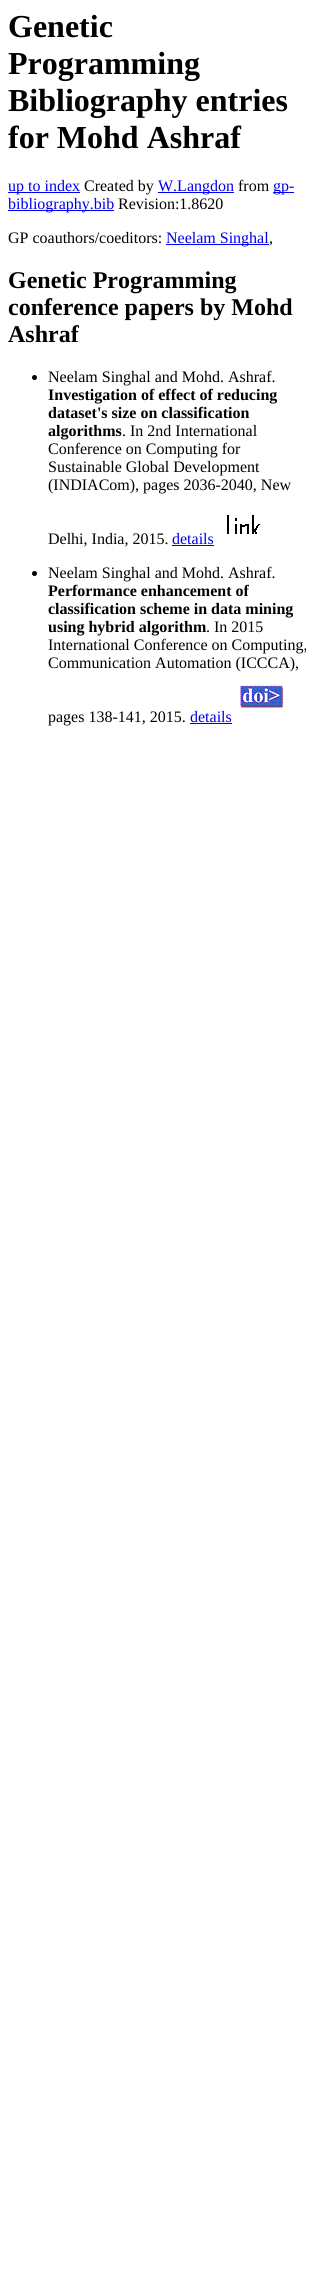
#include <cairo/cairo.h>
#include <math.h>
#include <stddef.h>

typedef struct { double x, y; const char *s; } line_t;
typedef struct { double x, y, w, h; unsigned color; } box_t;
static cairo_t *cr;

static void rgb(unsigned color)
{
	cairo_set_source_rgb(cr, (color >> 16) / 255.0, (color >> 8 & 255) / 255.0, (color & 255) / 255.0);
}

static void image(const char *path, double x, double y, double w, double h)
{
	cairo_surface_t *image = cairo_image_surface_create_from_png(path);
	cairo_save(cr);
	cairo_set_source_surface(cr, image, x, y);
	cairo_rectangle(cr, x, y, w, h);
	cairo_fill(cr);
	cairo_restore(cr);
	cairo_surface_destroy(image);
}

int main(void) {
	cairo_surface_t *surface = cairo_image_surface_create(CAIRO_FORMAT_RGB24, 320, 2273);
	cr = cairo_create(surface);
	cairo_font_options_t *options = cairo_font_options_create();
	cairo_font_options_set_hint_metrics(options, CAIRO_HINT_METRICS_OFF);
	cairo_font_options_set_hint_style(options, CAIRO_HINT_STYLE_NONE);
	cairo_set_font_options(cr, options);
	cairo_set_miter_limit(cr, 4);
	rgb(0xffffff);
	cairo_paint(cr);
	{
		static const box_t items[] = {
			{8, 192, 72, 1, 0x0000ee},
			{158, 192, 76, 1, 0x0000ee},
			{273, 192, 21, 1, 0x0000ee},
			{8, 210, 106, 1, 0x0000ee},
			{166, 244, 103, 1, 0x0000ee},
		};
		for (size_t i = 0; i < sizeof items / sizeof *items; i++) {
			rgb(items[i].color);
			cairo_rectangle(cr, items[i].x, items[i].y, items[i].w, items[i].h);
			cairo_fill(cr);
		}
	}
	rgb(0x000000);
	cairo_arc(cr, 34.5, 377.5, 2.5, 0, 2 * M_PI);
	cairo_fill(cr);
	image("img/1.png", 227, 515, 33, 19);
	rgb(0x0000ee);
	cairo_rectangle(cr, 172, 545, 42, 1);
	cairo_fill(cr);
	rgb(0x000000);
	cairo_arc(cr, 34.5, 573.5, 2.5, 0, 2 * M_PI);
	cairo_fill(cr);
	image("img/2.png", 240, 685, 44, 23);
	rgb(0x0000ee);
	cairo_rectangle(cr, 190, 723, 42, 1);
	cairo_fill(cr);
	cairo_select_font_face(cr, "Liberation Serif", CAIRO_FONT_SLANT_NORMAL, CAIRO_FONT_WEIGHT_BOLD);
	cairo_set_font_size(cr, 32);
	rgb(0x000000);
	{
		static const line_t items[] = {
			{8, 37, "Genetic"},
			{8, 74, "Programming"},
			{8, 111, "Bibliography entries"},
			{8, 148, "for Mohd Ashraf"},
		};
		for (size_t i = 0; i < sizeof items / sizeof *items; i++) {
			cairo_move_to(cr, items[i].x, items[i].y);
			cairo_show_text(cr, items[i].s);
		}
	}
	cairo_select_font_face(cr, "Liberation Serif", CAIRO_FONT_SLANT_NORMAL, CAIRO_FONT_WEIGHT_NORMAL);
	cairo_set_font_size(cr, 16);
	rgb(0x0000ee);
	cairo_move_to(cr, 8, 191);
	cairo_show_text(cr, "up to index");
	rgb(0x000000);
	cairo_move_to(cr, 84, 191);
	cairo_show_text(cr, "Created by");
	rgb(0x0000ee);
	cairo_move_to(cr, 158, 191);
	cairo_show_text(cr, "W.Langdon");
	rgb(0x000000);
	cairo_move_to(cr, 238, 191);
	cairo_show_text(cr, "from");
	rgb(0x0000ee);
	cairo_move_to(cr, 273, 191);
	cairo_show_text(cr, "gp-");
	cairo_move_to(cr, 8, 209);
	cairo_show_text(cr, "bibliography.bib");
	rgb(0x000000);
	cairo_move_to(cr, 118, 209);
	cairo_show_text(cr, "Revision:1.8620");
	cairo_move_to(cr, 8, 243);
	cairo_show_text(cr, "GP coauthors/coeditors:");
	rgb(0x0000ee);
	cairo_move_to(cr, 166, 243);
	cairo_show_text(cr, "Neelam Singhal");
	rgb(0x000000);
	cairo_move_to(cr, 269, 243);
	cairo_show_text(cr, ",");
	cairo_select_font_face(cr, "Liberation Serif", CAIRO_FONT_SLANT_NORMAL, CAIRO_FONT_WEIGHT_BOLD);
	cairo_set_font_size(cr, 24);
	{
		static const line_t items[] = {
			{8, 288, "Genetic Programming"},
			{8, 315, "conference papers by Mohd"},
			{8, 342, "Ashraf"},
		};
		for (size_t i = 0; i < sizeof items / sizeof *items; i++) {
			cairo_move_to(cr, items[i].x, items[i].y);
			cairo_show_text(cr, items[i].s);
		}
	}
	cairo_select_font_face(cr, "Liberation Serif", CAIRO_FONT_SLANT_NORMAL, CAIRO_FONT_WEIGHT_NORMAL);
	cairo_set_font_size(cr, 16);
	cairo_move_to(cr, 48, 382);
	cairo_show_text(cr, "Neelam Singhal and Mohd. Ashraf.");
	cairo_select_font_face(cr, "Liberation Serif", CAIRO_FONT_SLANT_NORMAL, CAIRO_FONT_WEIGHT_BOLD);
	{
		static const line_t items[] = {
			{48, 400, "Investigation of effect of reducing"},
			{48, 418, "dataset's size on classification"},
			{48, 436, "algorithms"},
		};
		for (size_t i = 0; i < sizeof items / sizeof *items; i++) {
			cairo_move_to(cr, items[i].x, items[i].y);
			cairo_show_text(cr, items[i].s);
		}
	}
	cairo_select_font_face(cr, "Liberation Serif", CAIRO_FONT_SLANT_NORMAL, CAIRO_FONT_WEIGHT_NORMAL);
	{
		static const line_t items[] = {
			{122, 436, ". In 2nd International"},
			{48, 454, "Conference on Computing for"},
			{48, 472, "Sustainable Global Development"},
			{48, 490, "(INDIACom), pages 2036-2040, New"},
			{48, 544, "Delhi, India, 2015."},
		};
		for (size_t i = 0; i < sizeof items / sizeof *items; i++) {
			cairo_move_to(cr, items[i].x, items[i].y);
			cairo_show_text(cr, items[i].s);
		}
	}
	rgb(0x0000ee);
	cairo_move_to(cr, 172, 544);
	cairo_show_text(cr, "details");
	rgb(0x000000);
	cairo_move_to(cr, 48, 578);
	cairo_show_text(cr, "Neelam Singhal and Mohd. Ashraf.");
	cairo_select_font_face(cr, "Liberation Serif", CAIRO_FONT_SLANT_NORMAL, CAIRO_FONT_WEIGHT_BOLD);
	{
		static const line_t items[] = {
			{48, 596, "Performance enhancement of"},
			{48, 614, "classification scheme in data mining"},
			{48, 632, "using hybrid algorithm"},
		};
		for (size_t i = 0; i < sizeof items / sizeof *items; i++) {
			cairo_move_to(cr, items[i].x, items[i].y);
			cairo_show_text(cr, items[i].s);
		}
	}
	cairo_select_font_face(cr, "Liberation Serif", CAIRO_FONT_SLANT_NORMAL, CAIRO_FONT_WEIGHT_NORMAL);
	{
		static const line_t items[] = {
			{206, 632, ". In 2015"},
			{48, 650, "International Conference on Computing,"},
			{48, 668, "Communication Automation (ICCCA),"},
			{48, 722, "pages 138-141, 2015."},
		};
		for (size_t i = 0; i < sizeof items / sizeof *items; i++) {
			cairo_move_to(cr, items[i].x, items[i].y);
			cairo_show_text(cr, items[i].s);
		}
	}
	rgb(0x0000ee);
	cairo_move_to(cr, 190, 722);
	cairo_show_text(cr, "details");
	cairo_surface_write_to_png(surface, "page.png");
	cairo_font_options_destroy(options);
	cairo_destroy(cr);
	cairo_surface_destroy(surface);
	return 0;
}
